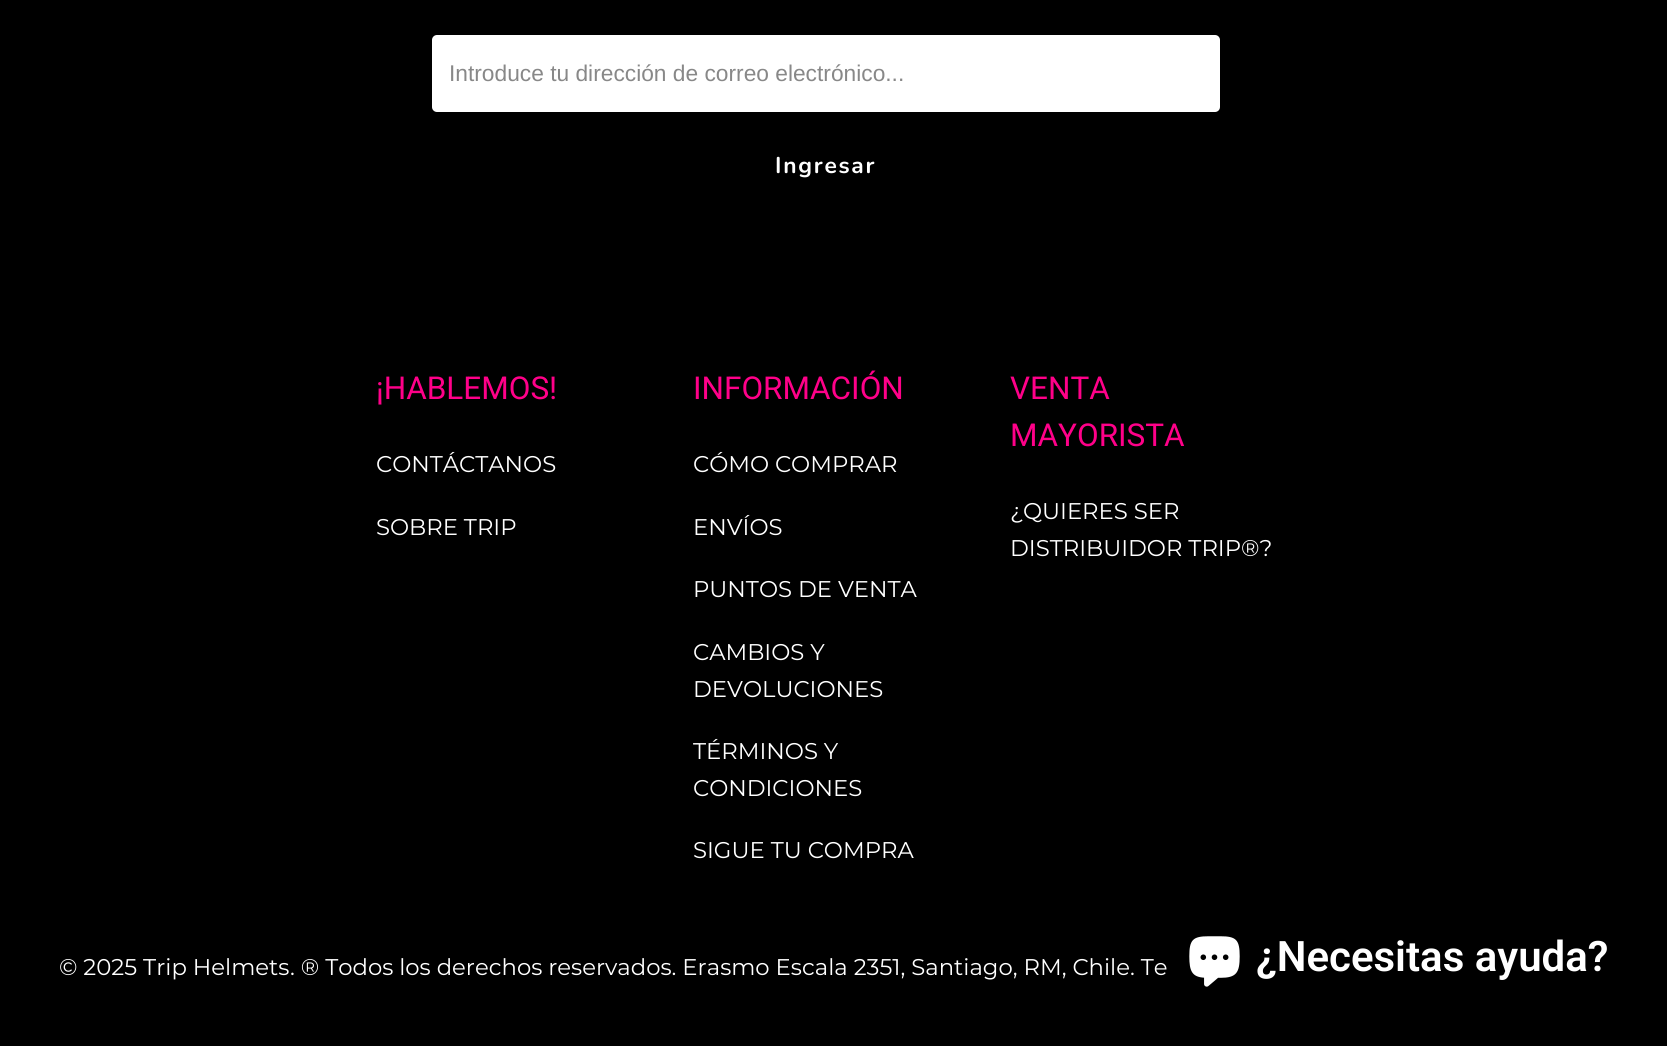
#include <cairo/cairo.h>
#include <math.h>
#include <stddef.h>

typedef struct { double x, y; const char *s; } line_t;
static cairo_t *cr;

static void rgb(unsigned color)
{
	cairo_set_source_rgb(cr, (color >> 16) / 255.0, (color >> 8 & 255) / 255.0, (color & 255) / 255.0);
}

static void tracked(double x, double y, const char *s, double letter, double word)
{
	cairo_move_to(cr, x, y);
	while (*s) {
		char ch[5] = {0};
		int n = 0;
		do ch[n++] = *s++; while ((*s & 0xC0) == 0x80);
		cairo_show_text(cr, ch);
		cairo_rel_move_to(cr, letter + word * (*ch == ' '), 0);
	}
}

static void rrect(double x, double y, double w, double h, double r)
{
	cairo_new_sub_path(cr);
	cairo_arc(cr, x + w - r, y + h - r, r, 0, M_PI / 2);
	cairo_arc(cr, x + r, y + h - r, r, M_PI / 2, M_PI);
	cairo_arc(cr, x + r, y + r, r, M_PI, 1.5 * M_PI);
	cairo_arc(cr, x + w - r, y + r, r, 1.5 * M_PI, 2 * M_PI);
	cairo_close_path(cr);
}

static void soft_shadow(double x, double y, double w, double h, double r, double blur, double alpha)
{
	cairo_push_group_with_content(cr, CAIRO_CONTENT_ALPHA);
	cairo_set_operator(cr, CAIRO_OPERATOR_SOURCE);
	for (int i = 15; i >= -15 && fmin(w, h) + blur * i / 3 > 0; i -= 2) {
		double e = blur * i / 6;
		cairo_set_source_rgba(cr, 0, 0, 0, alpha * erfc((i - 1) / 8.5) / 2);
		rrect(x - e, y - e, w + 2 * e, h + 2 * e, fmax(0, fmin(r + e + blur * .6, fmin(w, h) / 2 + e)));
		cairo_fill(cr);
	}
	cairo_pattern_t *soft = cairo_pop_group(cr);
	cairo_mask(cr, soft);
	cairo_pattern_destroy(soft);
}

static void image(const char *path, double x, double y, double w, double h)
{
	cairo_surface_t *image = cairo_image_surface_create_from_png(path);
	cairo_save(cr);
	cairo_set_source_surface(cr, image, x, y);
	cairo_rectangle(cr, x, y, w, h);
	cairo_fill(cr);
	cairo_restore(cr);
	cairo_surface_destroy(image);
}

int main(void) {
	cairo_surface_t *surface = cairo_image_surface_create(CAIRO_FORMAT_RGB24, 1667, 1046);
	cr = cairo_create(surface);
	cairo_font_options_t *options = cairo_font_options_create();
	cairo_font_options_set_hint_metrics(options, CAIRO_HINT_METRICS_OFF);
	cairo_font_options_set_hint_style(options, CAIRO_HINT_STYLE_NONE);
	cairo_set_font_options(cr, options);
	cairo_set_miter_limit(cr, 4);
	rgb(0x000000);
	cairo_paint(cr);
	rgb(0xffffff);
	rrect(432, 35, 788, 77, 5);
	cairo_fill(cr);
	rgb(0x000000);
	soft_shadow(1167, 905, 462, 105, 28, 4.5, 0.15);
	image("img/1.png", 1189, 936, 51, 51);
	cairo_select_font_face(cr, "Liberation Sans", CAIRO_FONT_SLANT_NORMAL, CAIRO_FONT_WEIGHT_NORMAL);
	cairo_set_font_size(cr, 22.75);
	rgb(0x888888);
	cairo_move_to(cr, 449, 81);
	cairo_show_text(cr, "Introduce tu dirección de correo electrónico...");
	cairo_select_font_face(cr, "Nunito", CAIRO_FONT_SLANT_NORMAL, CAIRO_FONT_WEIGHT_BOLD);
	rgb(0xffffff);
	tracked(775, 173, "Ingresar", 1.75, 0);
	cairo_select_font_face(cr, "Roboto", CAIRO_FONT_SLANT_NORMAL, CAIRO_FONT_WEIGHT_NORMAL);
	cairo_set_font_size(cr, 31.5);
	rgb(0xff0089);
	cairo_move_to(cr, 376, 399);
	cairo_show_text(cr, "¡HABLEMOS!");
	cairo_select_font_face(cr, "Montserrat", CAIRO_FONT_SLANT_NORMAL, CAIRO_FONT_WEIGHT_NORMAL);
	cairo_set_font_size(cr, 22.75);
	rgb(0xffffff);
	cairo_move_to(cr, 376, 472);
	cairo_show_text(cr, "CONTÁCTANOS");
	cairo_move_to(cr, 376, 535);
	cairo_show_text(cr, "SOBRE TRIP");
	cairo_select_font_face(cr, "Roboto", CAIRO_FONT_SLANT_NORMAL, CAIRO_FONT_WEIGHT_NORMAL);
	cairo_set_font_size(cr, 31.5);
	rgb(0xff0089);
	cairo_move_to(cr, 693, 399);
	cairo_show_text(cr, "INFORMACIÓN");
	cairo_select_font_face(cr, "Montserrat", CAIRO_FONT_SLANT_NORMAL, CAIRO_FONT_WEIGHT_NORMAL);
	cairo_set_font_size(cr, 22.75);
	rgb(0xffffff);
	{
		static const line_t items[] = {
			{693, 472, "CÓMO COMPRAR"},
			{693, 535, "ENVÍOS"},
			{693, 597, "PUNTOS DE VENTA"},
			{693, 660, "CAMBIOS Y"},
			{693, 697, "DEVOLUCIONES"},
			{693, 759, "TÉRMINOS Y"},
			{693, 796, "CONDICIONES"},
			{693, 858, "SIGUE TU COMPRA"},
		};
		for (size_t i = 0; i < sizeof items / sizeof *items; i++) {
			cairo_move_to(cr, items[i].x, items[i].y);
			cairo_show_text(cr, items[i].s);
		}
	}
	cairo_select_font_face(cr, "Roboto", CAIRO_FONT_SLANT_NORMAL, CAIRO_FONT_WEIGHT_NORMAL);
	cairo_set_font_size(cr, 31.5);
	rgb(0xff0089);
	cairo_move_to(cr, 1010, 399);
	cairo_show_text(cr, "VENTA");
	cairo_move_to(cr, 1010, 446);
	cairo_show_text(cr, "MAYORISTA");
	cairo_select_font_face(cr, "Montserrat", CAIRO_FONT_SLANT_NORMAL, CAIRO_FONT_WEIGHT_NORMAL);
	cairo_set_font_size(cr, 22.75);
	rgb(0xffffff);
	{
		static const line_t items[] = {
			{1010, 519, "¿QUIERES SER"},
			{1010, 556, "DISTRIBUIDOR TRIP®?"},
			{59, 975, "© 2025 Trip Helmets"},
			{290, 975, ". ® Todos los derechos reservados. Erasmo Escala 2351, Santiago, RM, Chile. Te"},
		};
		for (size_t i = 0; i < sizeof items / sizeof *items; i++) {
			cairo_move_to(cr, items[i].x, items[i].y);
			cairo_show_text(cr, items[i].s);
		}
	}
	cairo_select_font_face(cr, "Roboto SemiBold", CAIRO_FONT_SLANT_NORMAL, CAIRO_FONT_WEIGHT_NORMAL);
	cairo_set_font_size(cr, 42);
	cairo_move_to(cr, 1256, 971);
	cairo_show_text(cr, "¿Necesitas ayuda?");
	cairo_surface_write_to_png(surface, "page.png");
	cairo_font_options_destroy(options);
	cairo_destroy(cr);
	cairo_surface_destroy(surface);
	return 0;
}
